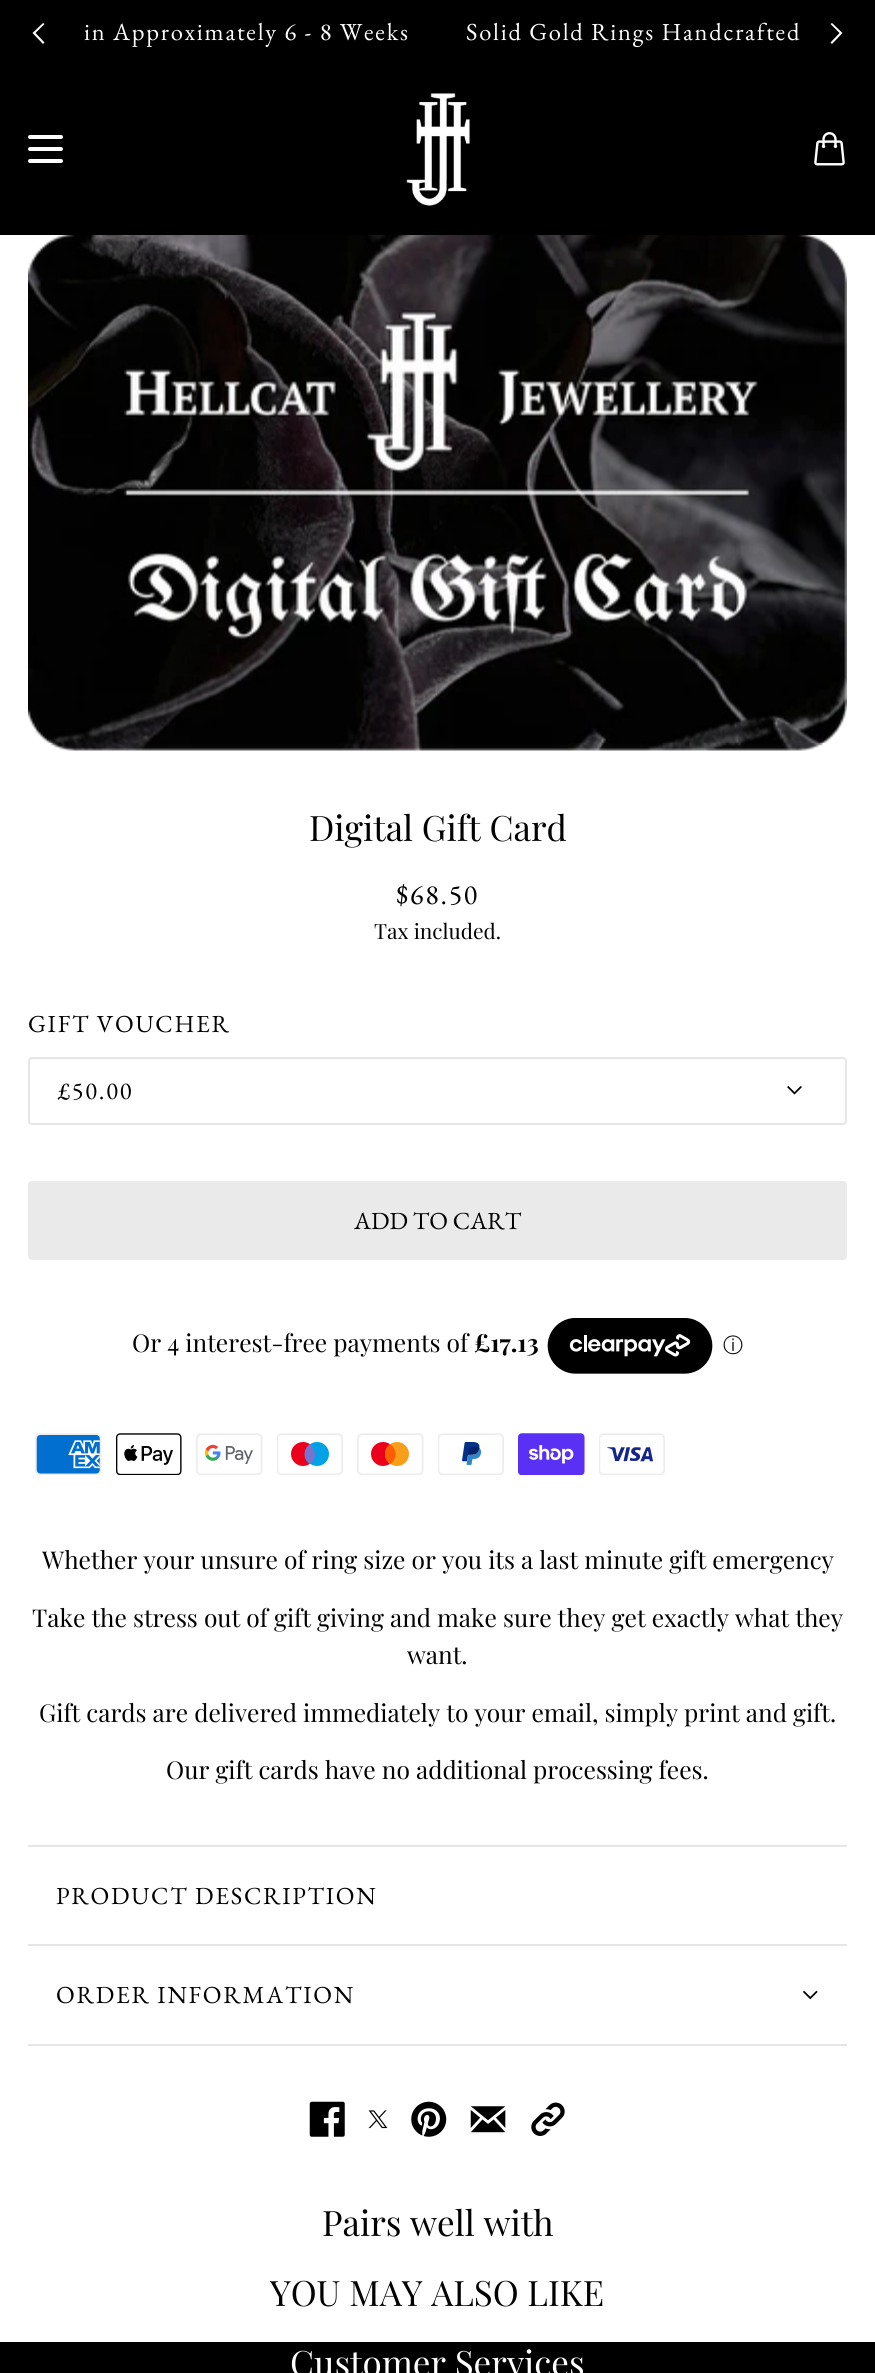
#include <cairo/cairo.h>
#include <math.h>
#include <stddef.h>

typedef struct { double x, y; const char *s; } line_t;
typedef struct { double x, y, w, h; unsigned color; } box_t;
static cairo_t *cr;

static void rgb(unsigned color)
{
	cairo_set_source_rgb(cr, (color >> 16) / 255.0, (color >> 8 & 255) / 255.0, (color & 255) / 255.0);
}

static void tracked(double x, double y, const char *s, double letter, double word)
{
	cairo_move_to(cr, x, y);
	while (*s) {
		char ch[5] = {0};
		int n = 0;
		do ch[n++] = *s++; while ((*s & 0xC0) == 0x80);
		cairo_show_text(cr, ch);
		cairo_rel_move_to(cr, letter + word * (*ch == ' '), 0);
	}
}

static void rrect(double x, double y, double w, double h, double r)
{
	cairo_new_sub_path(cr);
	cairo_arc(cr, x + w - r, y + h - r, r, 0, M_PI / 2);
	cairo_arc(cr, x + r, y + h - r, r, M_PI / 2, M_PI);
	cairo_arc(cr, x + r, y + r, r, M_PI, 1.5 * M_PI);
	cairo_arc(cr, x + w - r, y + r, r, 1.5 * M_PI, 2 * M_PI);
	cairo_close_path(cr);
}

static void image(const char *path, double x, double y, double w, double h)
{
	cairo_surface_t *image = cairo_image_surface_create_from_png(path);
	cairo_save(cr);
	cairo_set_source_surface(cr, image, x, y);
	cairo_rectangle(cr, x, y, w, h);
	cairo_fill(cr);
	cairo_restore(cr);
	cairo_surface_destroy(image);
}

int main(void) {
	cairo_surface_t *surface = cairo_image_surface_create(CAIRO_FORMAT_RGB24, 875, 2373);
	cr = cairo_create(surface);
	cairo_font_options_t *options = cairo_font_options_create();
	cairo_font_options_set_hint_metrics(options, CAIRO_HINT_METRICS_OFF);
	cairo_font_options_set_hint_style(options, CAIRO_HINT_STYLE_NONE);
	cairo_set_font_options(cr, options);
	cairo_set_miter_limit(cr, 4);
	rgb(0xffffff);
	cairo_paint(cr);
	rgb(0x000000);
	cairo_rectangle(cr, 0, 0, 875, 235);
	cairo_fill(cr);
	rgb(0xffffff);
	rrect(28, 135, 35, 4, 2);
	cairo_fill(cr);
	rrect(28, 147, 35, 4, 2);
	cairo_fill(cr);
	rrect(28, 159, 35, 4, 2);
	cairo_fill(cr);
	image("img/1.png", 406, 93, 64, 113);
	image("img/2.png", 814, 132, 31, 34);
	cairo_new_path(cr);
	cairo_move_to(cr, 35.5, 33);
	cairo_line_to(cr, 44.5, 42.5);
	cairo_line_to(cr, 43, 44);
	cairo_line_to(cr, 32.5, 33);
	cairo_line_to(cr, 43, 23);
	cairo_line_to(cr, 44.5, 24);
	cairo_close_path(cr);
	cairo_fill(cr);
	cairo_new_path(cr);
	cairo_move_to(cr, 839.5, 33);
	cairo_line_to(cr, 830.5, 24);
	cairo_line_to(cr, 832, 23);
	cairo_line_to(cr, 842.5, 33);
	cairo_line_to(cr, 832, 44);
	cairo_line_to(cr, 830.5, 42.5);
	cairo_close_path(cr);
	cairo_fill(cr);
	image("img/3.png", 28, 235, 819, 516);
	rrect(29, 1058, 817, 66, 3);
	rgb(0xe6e6e6);
	cairo_stroke(cr);
	image("img/4.png", 787, 1086, 15, 9);
	rgb(0xeaeaea);
	rrect(28, 1181, 819, 79, 4);
	cairo_fill(cr);
	image("img/5.png", 547, 1318, 166, 56);
	image("img/6.png", 35, 1433, 67, 42);
	image("img/7.png", 116, 1433, 66, 42);
	image("img/8.png", 196, 1433, 67, 42);
	image("img/9.png", 277, 1433, 66, 42);
	image("img/10.png", 357, 1433, 67, 42);
	image("img/11.png", 438, 1433, 66, 42);
	image("img/12.png", 518, 1433, 67, 42);
	image("img/13.png", 599, 1433, 66, 42);
	{
		static const box_t items[] = {
			{28, 1845, 819, 2, 0xe6e6e6},
			{28, 1944, 819, 2, 0xe6e6e6},
			{28, 2044, 819, 2, 0xe6e6e6},
		};
		for (size_t i = 0; i < sizeof items / sizeof *items; i++) {
			rgb(items[i].color);
			cairo_rectangle(cr, items[i].x, items[i].y, items[i].w, items[i].h);
			cairo_fill(cr);
		}
	}
	image("img/14.png", 802, 1990, 16, 10);
	image("img/15.png", 309, 2101, 36, 36);
	image("img/16.png", 368, 2110, 20, 19);
	image("img/17.png", 411, 2101, 36, 36);
	image("img/18.png", 470, 2106, 36, 27);
	image("img/19.png", 531, 2102, 34, 34);
	rgb(0x000000);
	cairo_rectangle(cr, 0, 2342, 875, 31);
	cairo_fill(cr);
	cairo_select_font_face(cr, "EB Garamond", CAIRO_FONT_SLANT_NORMAL, CAIRO_FONT_WEIGHT_NORMAL);
	cairo_set_font_size(cr, 24.5);
	rgb(0xffffff);
	tracked(84, 40, "in Approximately 6 - 8 Weeks", 1.75, 0);
	tracked(466, 40, "Solid Gold Rings Handcrafted", 1.75, 0);
	cairo_select_font_face(cr, "Playfair Display", CAIRO_FONT_SLANT_NORMAL, CAIRO_FONT_WEIGHT_NORMAL);
	cairo_set_font_size(cr, 35);
	rgb(0x000000);
	cairo_move_to(cr, 309, 841);
	cairo_show_text(cr, "Digital Gift Card");
	cairo_select_font_face(cr, "EB Garamond", CAIRO_FONT_SLANT_NORMAL, CAIRO_FONT_WEIGHT_NORMAL);
	cairo_set_font_size(cr, 28);
	tracked(396, 904, "$68.50", 1.75, 0);
	cairo_select_font_face(cr, "Playfair Display", CAIRO_FONT_SLANT_NORMAL, CAIRO_FONT_WEIGHT_NORMAL);
	cairo_set_font_size(cr, 21);
	cairo_move_to(cr, 374, 939);
	cairo_show_text(cr, "Tax included.");
	cairo_select_font_face(cr, "EB Garamond", CAIRO_FONT_SLANT_NORMAL, CAIRO_FONT_WEIGHT_NORMAL);
	cairo_set_font_size(cr, 24.5);
	tracked(28, 1032, "GIFT VOUCHER", 1.75, 0);
	tracked(58, 1099, "£50.00", 1.75, 0);
	cairo_move_to(cr, 354, 1229);
	cairo_show_text(cr, "ADD TO CART");
	cairo_select_font_face(cr, "Playfair Display", CAIRO_FONT_SLANT_NORMAL, CAIRO_FONT_WEIGHT_NORMAL);
	cairo_move_to(cr, 132, 1352);
	cairo_show_text(cr, "Or 4 interest-free payments of");
	cairo_select_font_face(cr, "Playfair Display", CAIRO_FONT_SLANT_NORMAL, CAIRO_FONT_WEIGHT_BOLD);
	cairo_move_to(cr, 474, 1352);
	cairo_show_text(cr, "£17.13");
	cairo_select_font_face(cr, "WenQuanYi Zen Hei Medium", CAIRO_FONT_SLANT_NORMAL, CAIRO_FONT_WEIGHT_NORMAL);
	cairo_set_font_size(cr, 20);
	cairo_move_to(cr, 723, 1352);
	cairo_show_text(cr, "ⓘ");
	cairo_select_font_face(cr, "Playfair Display", CAIRO_FONT_SLANT_NORMAL, CAIRO_FONT_WEIGHT_NORMAL);
	cairo_set_font_size(cr, 24.5);
	{
		static const line_t items[] = {
			{42, 1569, "Whether your unsure of ring size or you its a last minute gift emergency"},
			{32, 1627, "Take the stress out of gift giving and make sure they get exactly what they"},
			{407, 1664, "want."},
			{39, 1722, "Gift cards are delivered immediately to your email, simply print and gift."},
			{166, 1779, "Our gift cards have no additional processing fees."},
		};
		for (size_t i = 0; i < sizeof items / sizeof *items; i++) {
			cairo_move_to(cr, items[i].x, items[i].y);
			cairo_show_text(cr, items[i].s);
		}
	}
	cairo_select_font_face(cr, "EB Garamond", CAIRO_FONT_SLANT_NORMAL, CAIRO_FONT_WEIGHT_NORMAL);
	tracked(56, 1904, "PRODUCT DESCRIPTION", 1.75, 0);
	tracked(56, 2003, "ORDER INFORMATION", 1.75, 0);
	cairo_select_font_face(cr, "Playfair Display", CAIRO_FONT_SLANT_NORMAL, CAIRO_FONT_WEIGHT_NORMAL);
	cairo_set_font_size(cr, 35);
	cairo_move_to(cr, 322, 2236);
	cairo_show_text(cr, "Pairs well with");
	cairo_move_to(cr, 270, 2306);
	cairo_show_text(cr, "YOU MAY ALSO LIKE");
	rgb(0xffffff);
	cairo_move_to(cr, 290, 2376);
	cairo_show_text(cr, "Customer Services");
	cairo_surface_write_to_png(surface, "page.png");
	cairo_font_options_destroy(options);
	cairo_destroy(cr);
	cairo_surface_destroy(surface);
	return 0;
}
